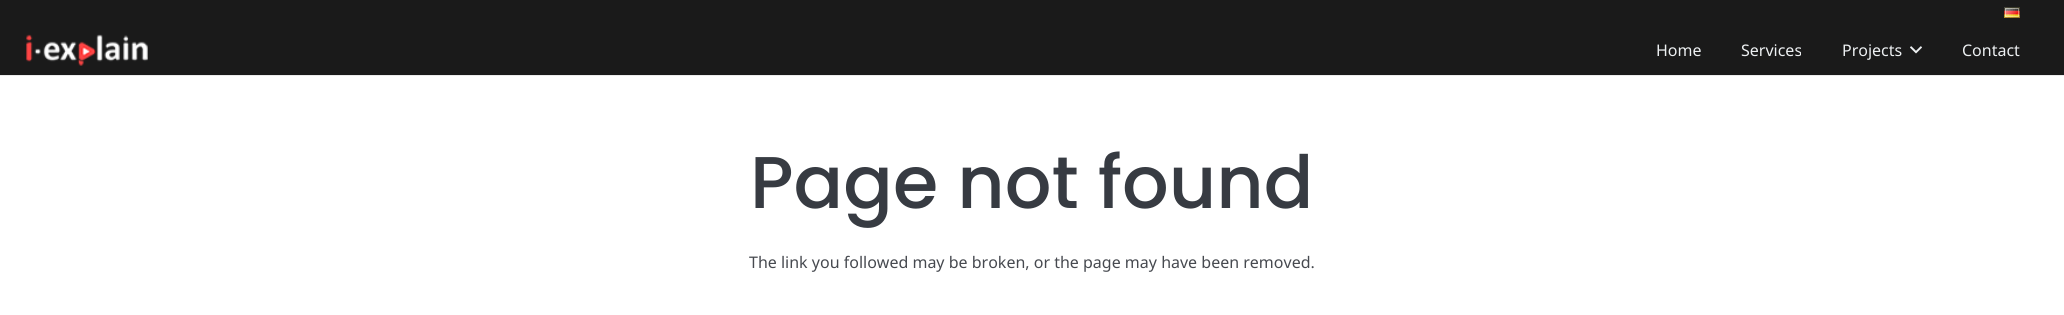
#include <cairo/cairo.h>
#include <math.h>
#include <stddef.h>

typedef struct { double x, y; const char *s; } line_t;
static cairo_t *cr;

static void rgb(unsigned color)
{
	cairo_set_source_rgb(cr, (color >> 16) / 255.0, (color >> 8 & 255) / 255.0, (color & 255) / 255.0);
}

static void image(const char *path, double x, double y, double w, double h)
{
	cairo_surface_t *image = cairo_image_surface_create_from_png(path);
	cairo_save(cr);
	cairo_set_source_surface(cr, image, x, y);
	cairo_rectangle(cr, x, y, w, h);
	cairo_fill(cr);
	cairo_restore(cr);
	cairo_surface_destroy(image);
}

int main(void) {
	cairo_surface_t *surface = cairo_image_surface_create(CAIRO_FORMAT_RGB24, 2064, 315);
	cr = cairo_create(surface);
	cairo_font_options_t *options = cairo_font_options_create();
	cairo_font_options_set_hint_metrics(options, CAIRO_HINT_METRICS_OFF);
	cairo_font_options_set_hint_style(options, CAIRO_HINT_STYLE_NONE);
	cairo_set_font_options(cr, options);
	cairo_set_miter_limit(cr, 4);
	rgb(0xffffff);
	cairo_paint(cr);
	rgb(0x1a1a1a);
	cairo_rectangle(cr, 0, 0, 2064, 75);
	cairo_fill(cr);
	image("img/1.png", 2004, 7, 16, 11);
	rgb(0xebebeb);
	cairo_rectangle(cr, 0, 75, 2064, 1);
	cairo_fill(cr);
	image("img/2.png", 26, 34, 122, 32);
	image("img/3.png", 1910, 46, 12, 8);
	cairo_select_font_face(cr, "Noto Sans", CAIRO_FONT_SLANT_NORMAL, CAIRO_FONT_WEIGHT_NORMAL);
	cairo_set_font_size(cr, 16);
	rgb(0xedf0f2);
	{
		static const line_t items[] = {
			{1656, 56, "Home"},
			{1741, 56, "Services"},
			{1842, 56, "Projects"},
			{1962, 56, "Contact"},
		};
		for (size_t i = 0; i < sizeof items / sizeof *items; i++) {
			cairo_move_to(cr, items[i].x, items[i].y);
			cairo_show_text(cr, items[i].s);
		}
	}
	cairo_select_font_face(cr, "Poppins Medium", CAIRO_FONT_SLANT_NORMAL, CAIRO_FONT_WEIGHT_NORMAL);
	cairo_set_font_size(cr, 73.25);
	rgb(0x373b42);
	cairo_move_to(cr, 750, 208);
	cairo_show_text(cr, "Page not found");
	cairo_select_font_face(cr, "Noto Sans", CAIRO_FONT_SLANT_NORMAL, CAIRO_FONT_WEIGHT_NORMAL);
	cairo_set_font_size(cr, 16);
	rgb(0x46494f);
	cairo_move_to(cr, 749, 268);
	cairo_show_text(cr, "The link you followed may be broken, or the page may have been removed.");
	cairo_surface_write_to_png(surface, "page.png");
	cairo_font_options_destroy(options);
	cairo_destroy(cr);
	cairo_surface_destroy(surface);
	return 0;
}
